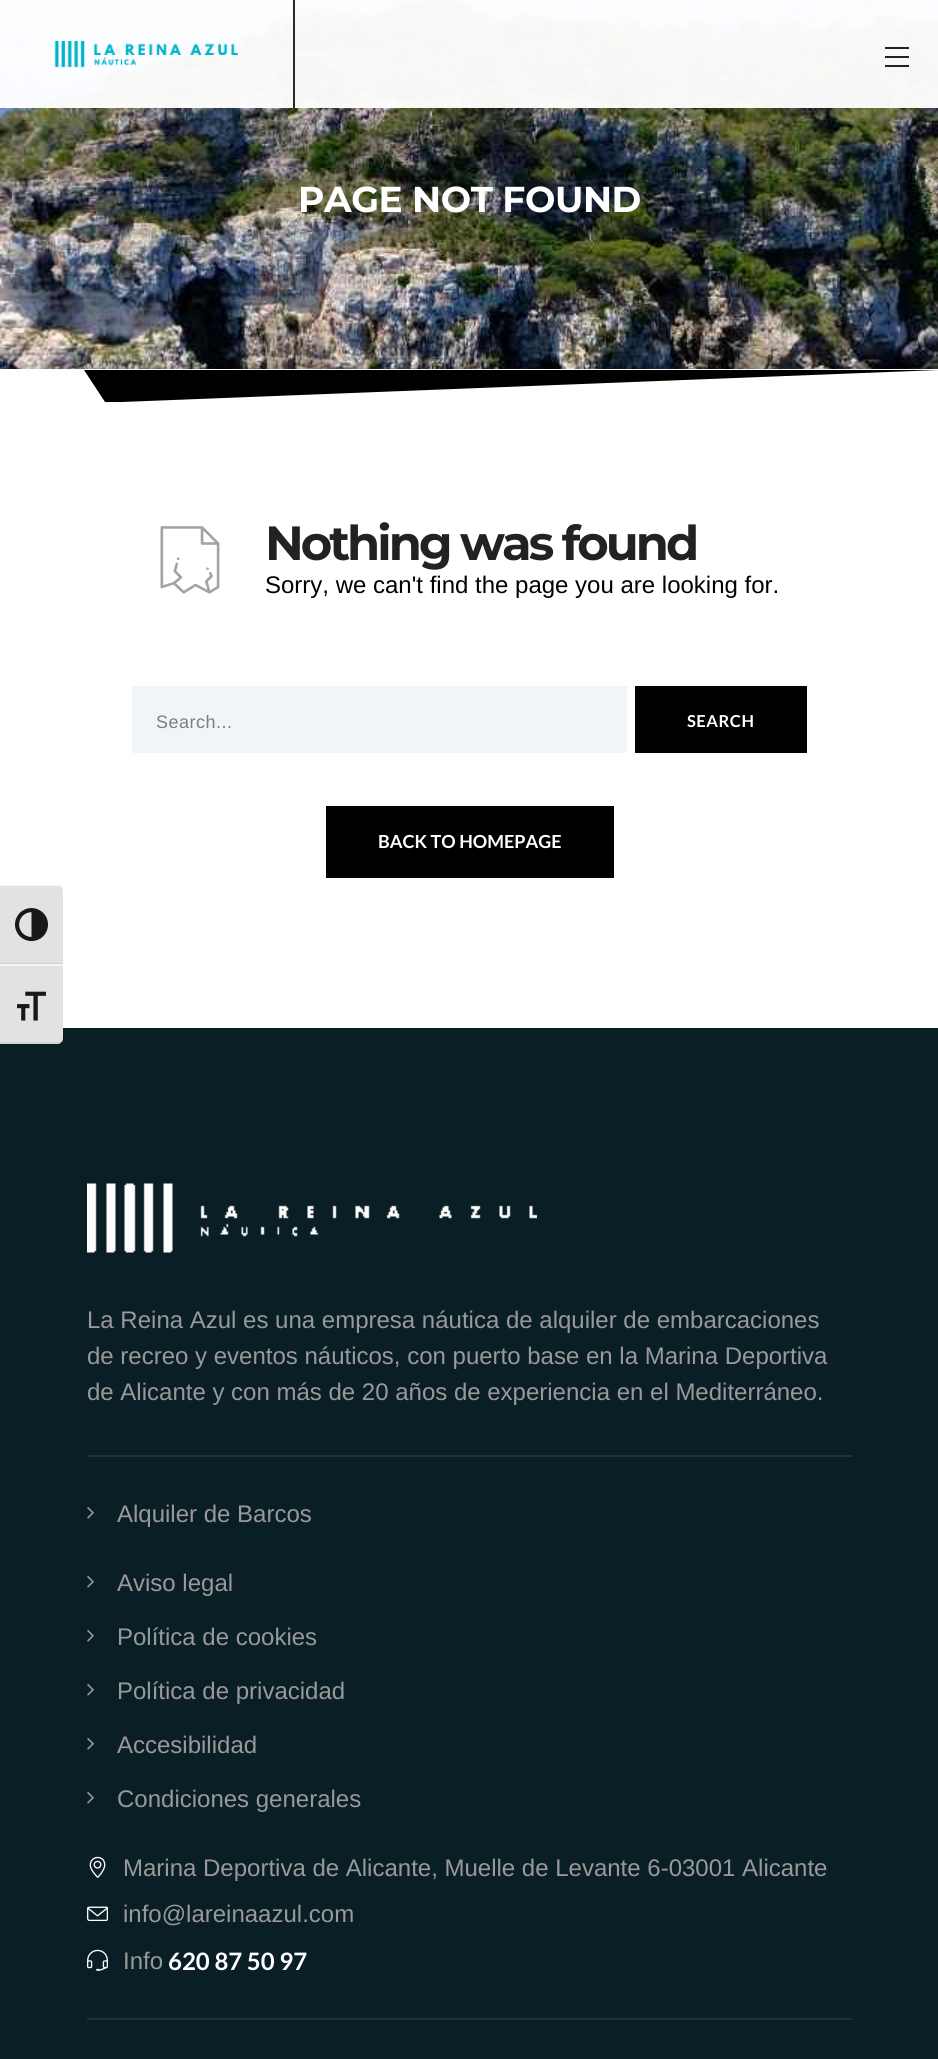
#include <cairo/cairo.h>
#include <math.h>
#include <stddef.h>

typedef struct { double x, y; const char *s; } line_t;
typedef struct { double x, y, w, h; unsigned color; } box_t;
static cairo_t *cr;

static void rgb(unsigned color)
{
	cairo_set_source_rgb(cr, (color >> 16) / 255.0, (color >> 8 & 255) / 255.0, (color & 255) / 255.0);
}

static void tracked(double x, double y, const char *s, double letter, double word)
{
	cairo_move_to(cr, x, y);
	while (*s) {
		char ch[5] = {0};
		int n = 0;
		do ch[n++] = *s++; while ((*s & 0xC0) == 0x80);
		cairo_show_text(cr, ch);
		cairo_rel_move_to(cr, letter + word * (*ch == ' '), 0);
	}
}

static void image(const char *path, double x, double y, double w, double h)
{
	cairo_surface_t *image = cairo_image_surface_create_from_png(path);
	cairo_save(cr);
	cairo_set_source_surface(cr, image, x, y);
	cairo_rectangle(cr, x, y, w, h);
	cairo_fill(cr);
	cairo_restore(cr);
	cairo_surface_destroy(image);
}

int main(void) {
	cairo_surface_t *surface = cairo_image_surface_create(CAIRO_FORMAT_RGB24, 938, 2059);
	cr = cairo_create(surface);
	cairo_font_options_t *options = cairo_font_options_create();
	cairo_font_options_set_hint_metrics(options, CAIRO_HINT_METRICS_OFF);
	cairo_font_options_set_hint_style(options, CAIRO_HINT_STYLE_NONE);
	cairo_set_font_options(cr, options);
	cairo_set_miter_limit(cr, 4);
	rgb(0xffffff);
	cairo_paint(cr);
	rgb(0xe2e2e2);
	cairo_new_path(cr);
	cairo_move_to(cr, 0, 885);
	cairo_line_to(cr, 57, 885);
	cairo_curve_to(cr, 60.5, 885, 63, 887.5, 63, 891);
	cairo_line_to(cr, 63, 965);
	cairo_line_to(cr, 0, 965);
	cairo_close_path(cr);
	cairo_fill(cr);
	rgb(0xf5f5f5);
	cairo_new_path(cr);
	cairo_move_to(cr, 0, 885);
	cairo_line_to(cr, 0, 886);
	cairo_line_to(cr, 57, 886);
	cairo_curve_to(cr, 60, 886, 63, 889, 63, 891);
	cairo_curve_to(cr, 63, 888, 60, 885, 57, 885);
	cairo_close_path(cr);
	cairo_fill(cr);
	rgb(0xd2d2d2);
	cairo_rectangle(cr, 0, 963, 63, 1);
	cairo_fill(cr);
	image("img/1.png", 15, 908, 33, 34);
	rgb(0x0a1e25);
	cairo_rectangle(cr, 0, 1028, 938, 1031);
	cairo_fill(cr);
	rgb(0xe2e2e2);
	cairo_new_path(cr);
	cairo_move_to(cr, 0, 965);
	cairo_line_to(cr, 63, 965);
	cairo_line_to(cr, 63, 1038);
	cairo_curve_to(cr, 63, 1041.5, 60.5, 1044, 57, 1044);
	cairo_line_to(cr, 0, 1044);
	cairo_close_path(cr);
	cairo_fill(cr);
	rgb(0xf5f5f5);
	cairo_rectangle(cr, 0, 964, 63, 2);
	cairo_fill(cr);
	rgb(0xd2d2d2);
	cairo_new_path(cr);
	cairo_move_to(cr, 0, 1042);
	cairo_line_to(cr, 0, 1044);
	cairo_line_to(cr, 57, 1044);
	cairo_curve_to(cr, 60, 1044, 63, 1041, 63, 1038);
	cairo_curve_to(cr, 63, 1040, 60, 1042, 57, 1042);
	cairo_close_path(cr);
	cairo_fill(cr);
	image("img/2.png", 17, 991, 29, 30);
	image("img/4.png", 0, 0, 938, 369);
	cairo_set_source_rgba(cr, 1, 1, 1, 0.96);
	cairo_rectangle(cr, 0, 0, 938, 108);
	cairo_fill(cr);
	rgb(0x292929);
	cairo_rectangle(cr, 293, 0, 2, 108);
	cairo_fill(cr);
	image("img/3.png", 54, 40, 184, 28);
	{
		static const box_t items[] = {
			{885, 47, 24, 2, 0x222222},
			{885, 56, 24, 2, 0x222222},
			{885, 65, 24, 2, 0x222222},
		};
		for (size_t i = 0; i < sizeof items / sizeof *items; i++) {
			rgb(items[i].color);
			cairo_rectangle(cr, items[i].x, items[i].y, items[i].w, items[i].h);
			cairo_fill(cr);
		}
	}
	rgb(0x000000);
	cairo_new_path(cr);
	cairo_move_to(cr, 84, 370);
	cairo_line_to(cr, 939, 370);
	cairo_line_to(cr, 121, 402);
	cairo_line_to(cr, 105, 402);
	cairo_close_path(cr);
	cairo_fill(cr);
	image("img/5.png", 160, 526, 60, 68);
	{
		static const box_t items[] = {
			{132, 686, 495, 67, 0xf1f5fa},
			{635, 686, 172, 67, 0x000000},
			{326, 806, 288, 72, 0x000000},
		};
		for (size_t i = 0; i < sizeof items / sizeof *items; i++) {
			rgb(items[i].color);
			cairo_rectangle(cr, items[i].x, items[i].y, items[i].w, items[i].h);
			cairo_fill(cr);
		}
	}
	image("img/6.png", 87, 1183, 450, 70);
	rgb(0x1f3137);
	cairo_rectangle(cr, 87, 1455, 765, 2);
	cairo_fill(cr);
	image("img/7.png", 87, 1507, 7, 12);
	image("img/7.png", 87, 1576, 7, 12);
	image("img/7.png", 87, 1630, 7, 12);
	image("img/7.png", 87, 1684, 7, 12);
	image("img/7.png", 87, 1738, 7, 12);
	image("img/7.png", 87, 1792, 7, 12);
	image("img/8.png", 89, 1856, 17, 22);
	image("img/9.png", 87, 1906, 21, 15);
	image("img/10.png", 87, 1949, 21, 22);
	cairo_rectangle(cr, 87, 2018, 765, 2);
	cairo_fill(cr);
	cairo_select_font_face(cr, "Montserrat", CAIRO_FONT_SLANT_NORMAL, CAIRO_FONT_WEIGHT_BOLD);
	cairo_set_font_size(cr, 36);
	rgb(0xffffff);
	tracked(298, 212, "PAGE NOT FOUND", -0.4, 0);
	cairo_set_font_size(cr, 48);
	rgb(0x222222);
	tracked(265, 560, "Nothing was found", -3, 0);
	cairo_select_font_face(cr, "Liberation Sans", CAIRO_FONT_SLANT_NORMAL, CAIRO_FONT_WEIGHT_NORMAL);
	cairo_set_font_size(cr, 24);
	rgb(0x000000);
	cairo_move_to(cr, 265, 593);
	cairo_show_text(cr, "Sorry, we can't find the page you are looking for.");
	cairo_set_font_size(cr, 18);
	rgb(0x7b7d7f);
	tracked(156, 728, "Search...", 0.5, 0);
	cairo_select_font_face(cr, "Lato", CAIRO_FONT_SLANT_NORMAL, CAIRO_FONT_WEIGHT_BOLD);
	cairo_set_font_size(cr, 16.5);
	rgb(0xffffff);
	tracked(687, 727, "SEARCH", 0.5, 0);
	cairo_set_font_size(cr, 18);
	cairo_move_to(cr, 378, 848);
	cairo_show_text(cr, "BACK TO HOMEPAGE");
	cairo_select_font_face(cr, "Liberation Sans", CAIRO_FONT_SLANT_NORMAL, CAIRO_FONT_WEIGHT_NORMAL);
	cairo_set_font_size(cr, 24);
	rgb(0x999999);
	{
		static const line_t items[] = {
			{87, 1328, "La Reina Azul es una empresa náutica de alquiler de embarcaciones"},
			{87, 1364, "de recreo y eventos náuticos, con puerto base en la Marina Deportiva"},
			{87, 1400, "de Alicante y con más de 20 años de experiencia en el Mediterráneo."},
			{117, 1522, "Alquiler de Barcos"},
			{117, 1591, "Aviso legal"},
			{117, 1645, "Política de cookies"},
			{117, 1699, "Política de privacidad"},
			{117, 1753, "Accesibilidad"},
			{117, 1807, "Condiciones generales"},
			{123, 1876, "Marina Deportiva de Alicante, Muelle de Levante 6-03001 Alicante"},
			{123, 1922, "info@lareinaazul.com"},
			{123, 1969, "Info"},
		};
		for (size_t i = 0; i < sizeof items / sizeof *items; i++) {
			cairo_move_to(cr, items[i].x, items[i].y);
			cairo_show_text(cr, items[i].s);
		}
	}
	cairo_select_font_face(cr, "Lato", CAIRO_FONT_SLANT_NORMAL, CAIRO_FONT_WEIGHT_BOLD);
	rgb(0xffffff);
	cairo_move_to(cr, 168, 1970);
	cairo_show_text(cr, "620 87 50 97");
	cairo_surface_write_to_png(surface, "page.png");
	cairo_font_options_destroy(options);
	cairo_destroy(cr);
	cairo_surface_destroy(surface);
	return 0;
}
